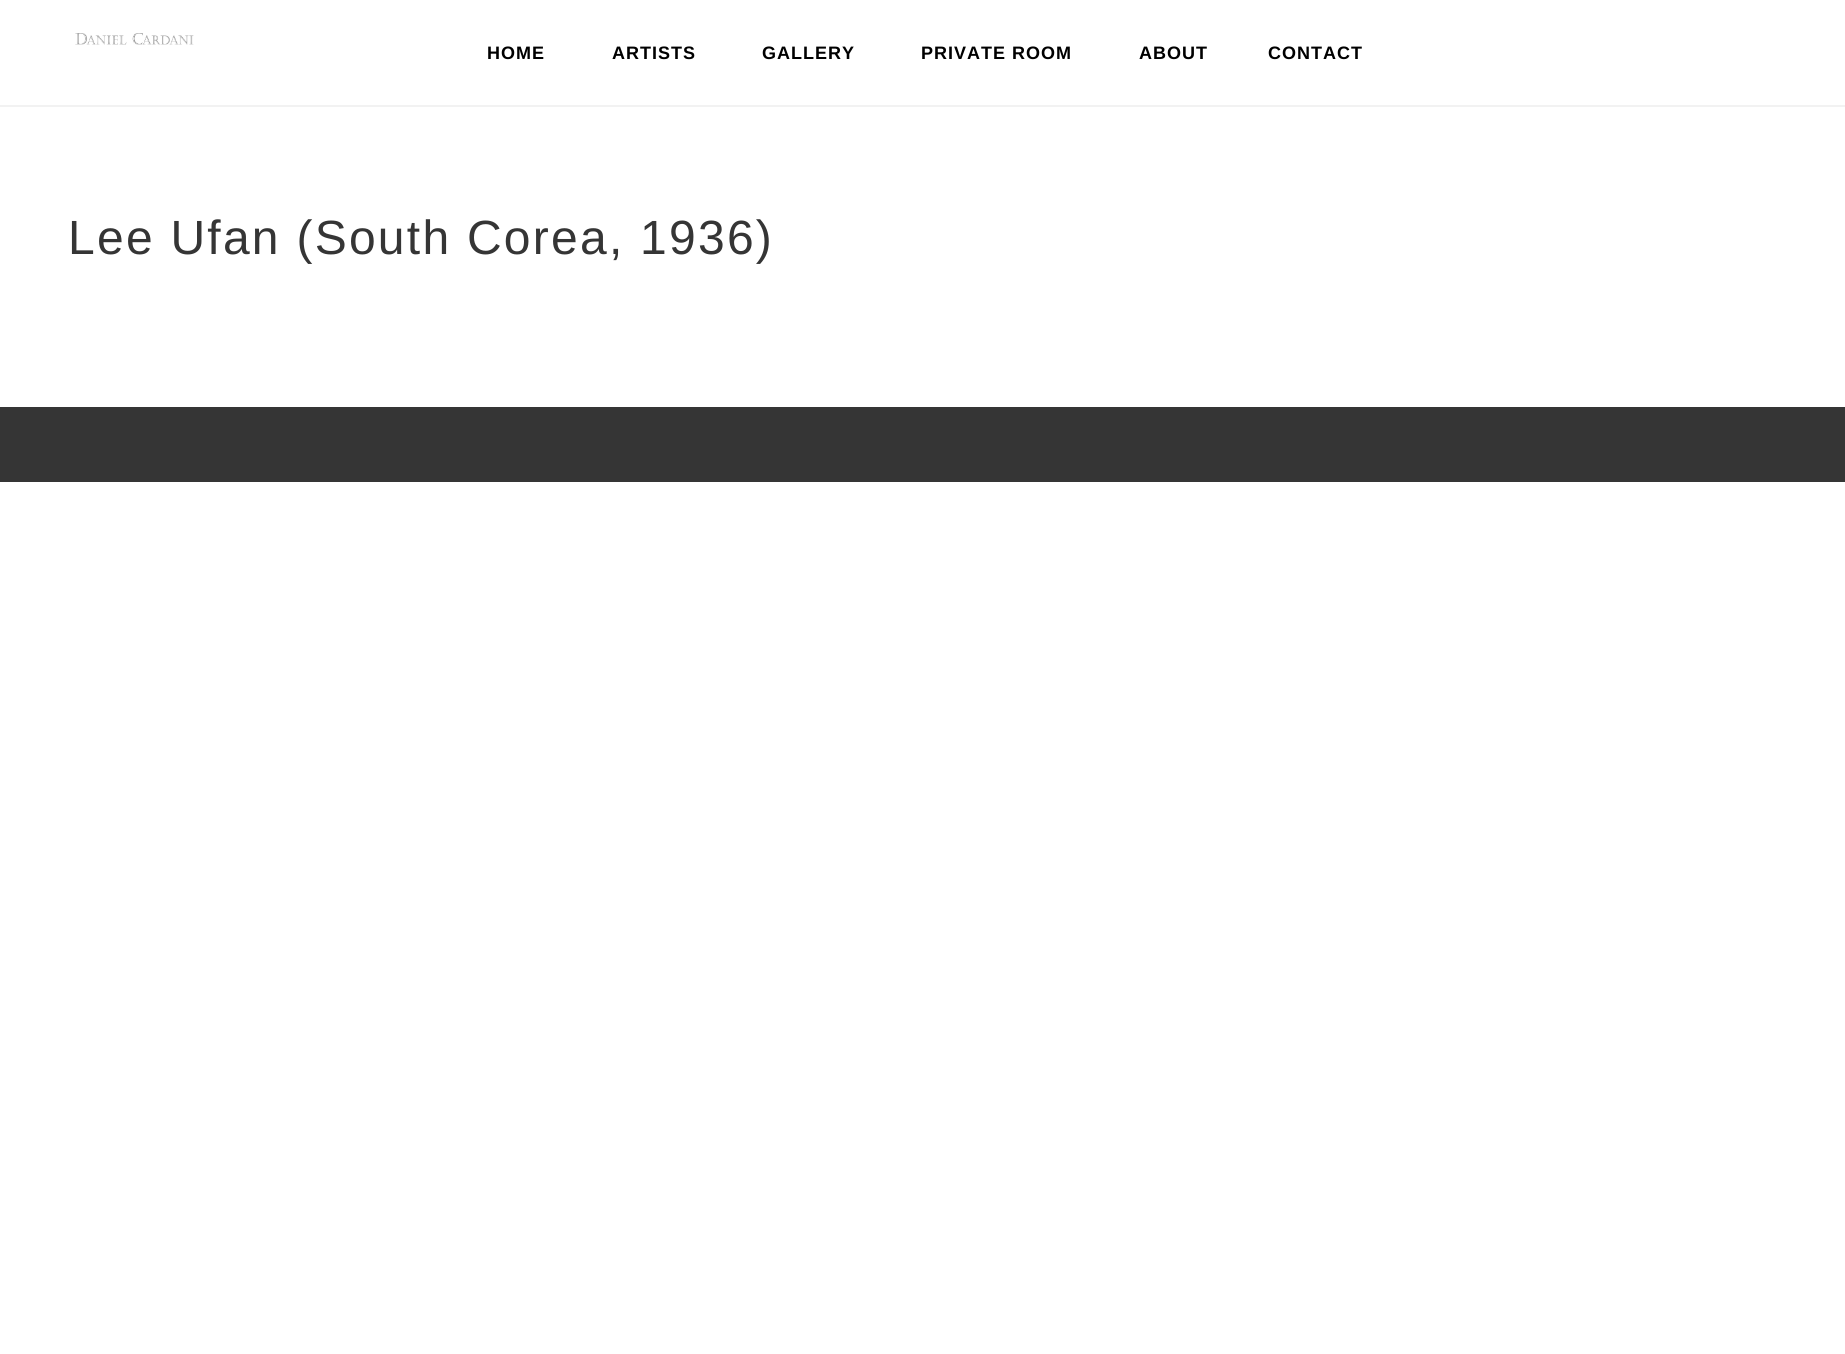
#include <cairo/cairo.h>
#include <math.h>
#include <stddef.h>

typedef struct { double x, y; const char *s; } line_t;
static cairo_t *cr;

static void rgb(unsigned color)
{
	cairo_set_source_rgb(cr, (color >> 16) / 255.0, (color >> 8 & 255) / 255.0, (color & 255) / 255.0);
}

static void tracked(double x, double y, const char *s, double letter, double word)
{
	cairo_move_to(cr, x, y);
	while (*s) {
		char ch[5] = {0};
		int n = 0;
		do ch[n++] = *s++; while ((*s & 0xC0) == 0x80);
		cairo_show_text(cr, ch);
		cairo_rel_move_to(cr, letter + word * (*ch == ' '), 0);
	}
}

static void image(const char *path, double x, double y, double w, double h)
{
	cairo_surface_t *image = cairo_image_surface_create_from_png(path);
	cairo_save(cr);
	cairo_set_source_surface(cr, image, x, y);
	cairo_rectangle(cr, x, y, w, h);
	cairo_fill(cr);
	cairo_restore(cr);
	cairo_surface_destroy(image);
}

int main(void) {
	cairo_surface_t *surface = cairo_image_surface_create(CAIRO_FORMAT_RGB24, 1845, 1354);
	cr = cairo_create(surface);
	cairo_font_options_t *options = cairo_font_options_create();
	cairo_font_options_set_hint_metrics(options, CAIRO_HINT_METRICS_OFF);
	cairo_font_options_set_hint_style(options, CAIRO_HINT_STYLE_NONE);
	cairo_set_font_options(cr, options);
	cairo_set_miter_limit(cr, 4);
	rgb(0xffffff);
	cairo_paint(cr);
	rgb(0xf2f2f2);
	cairo_rectangle(cr, 0, 105, 1845, 2);
	cairo_fill(cr);
	image("img/1.png", 75, 33, 119, 12);
	rgb(0x353535);
	cairo_rectangle(cr, 0, 407, 1845, 75);
	cairo_fill(cr);
	cairo_select_font_face(cr, "Liberation Sans", CAIRO_FONT_SLANT_NORMAL, CAIRO_FONT_WEIGHT_BOLD);
	cairo_set_font_size(cr, 18);
	rgb(0x000000);
	{
		static const line_t items[] = {
			{487, 59, "HOME"},
			{612, 59, "ARTISTS"},
			{762, 59, "GALLERY"},
			{921, 59, "PRIVATE ROOM"},
			{1139, 59, "ABOUT"},
			{1268, 59, "CONTACT"},
		};
		for (size_t i = 0; i < sizeof items / sizeof *items; i++) {
			tracked(items[i].x, items[i].y, items[i].s, 1, 0);
		}
	}
	cairo_select_font_face(cr, "Liberation Sans", CAIRO_FONT_SLANT_NORMAL, CAIRO_FONT_WEIGHT_NORMAL);
	cairo_set_font_size(cr, 48);
	rgb(0x353535);
	tracked(68, 254, "Lee Ufan (South Corea, 1936)", 2.25, 0);
	cairo_surface_write_to_png(surface, "page.png");
	cairo_font_options_destroy(options);
	cairo_destroy(cr);
	cairo_surface_destroy(surface);
	return 0;
}
